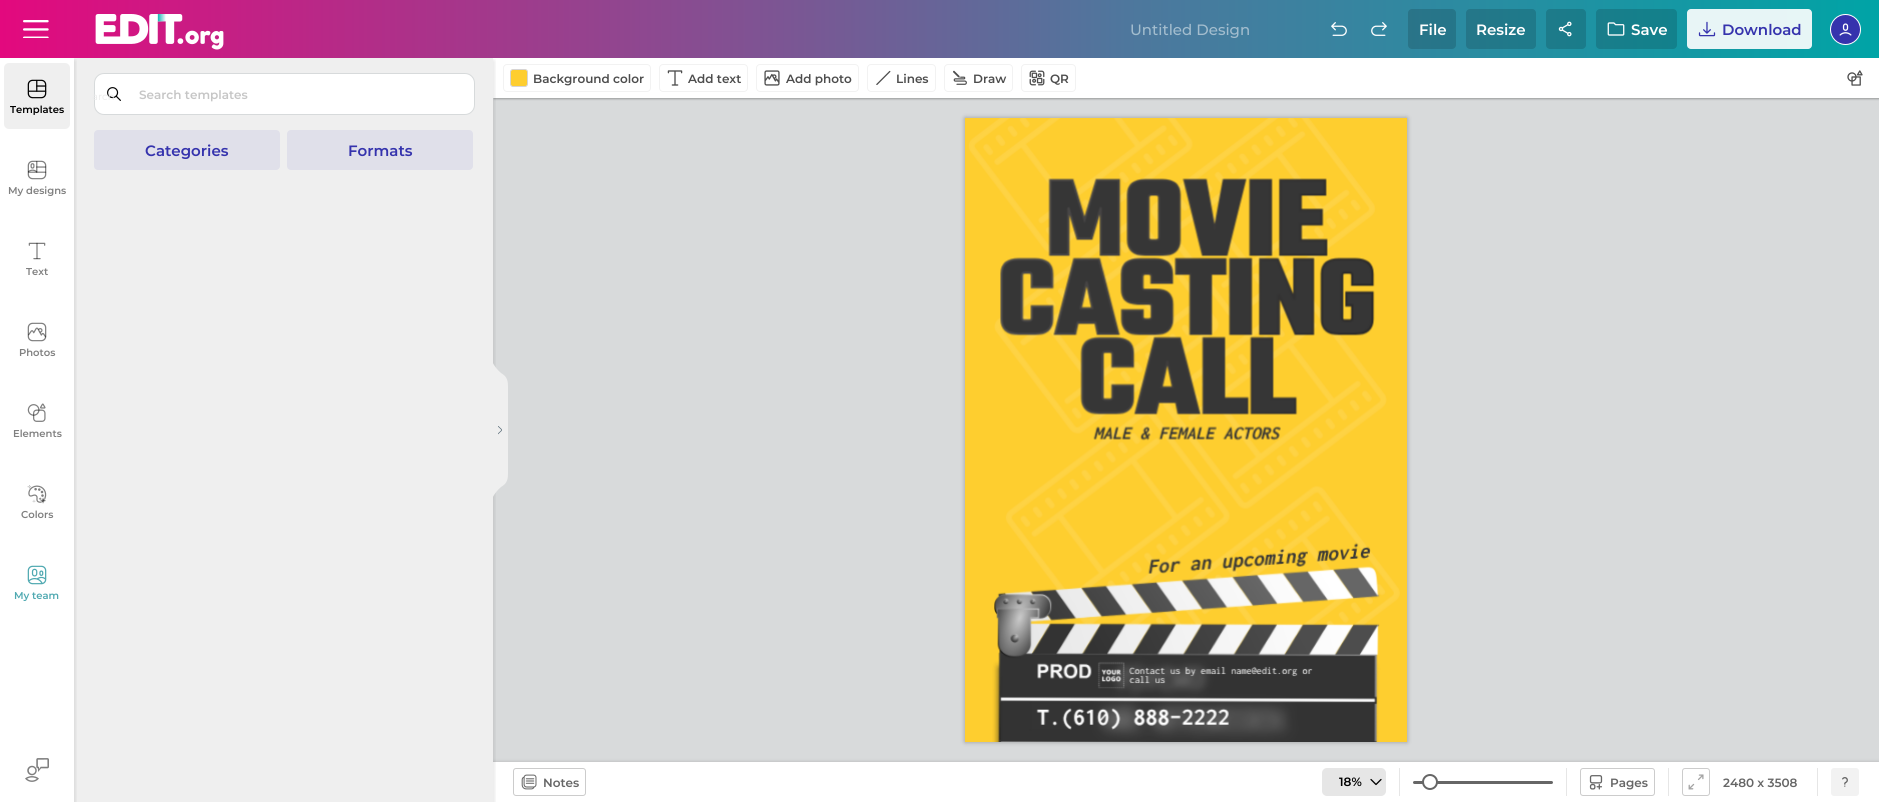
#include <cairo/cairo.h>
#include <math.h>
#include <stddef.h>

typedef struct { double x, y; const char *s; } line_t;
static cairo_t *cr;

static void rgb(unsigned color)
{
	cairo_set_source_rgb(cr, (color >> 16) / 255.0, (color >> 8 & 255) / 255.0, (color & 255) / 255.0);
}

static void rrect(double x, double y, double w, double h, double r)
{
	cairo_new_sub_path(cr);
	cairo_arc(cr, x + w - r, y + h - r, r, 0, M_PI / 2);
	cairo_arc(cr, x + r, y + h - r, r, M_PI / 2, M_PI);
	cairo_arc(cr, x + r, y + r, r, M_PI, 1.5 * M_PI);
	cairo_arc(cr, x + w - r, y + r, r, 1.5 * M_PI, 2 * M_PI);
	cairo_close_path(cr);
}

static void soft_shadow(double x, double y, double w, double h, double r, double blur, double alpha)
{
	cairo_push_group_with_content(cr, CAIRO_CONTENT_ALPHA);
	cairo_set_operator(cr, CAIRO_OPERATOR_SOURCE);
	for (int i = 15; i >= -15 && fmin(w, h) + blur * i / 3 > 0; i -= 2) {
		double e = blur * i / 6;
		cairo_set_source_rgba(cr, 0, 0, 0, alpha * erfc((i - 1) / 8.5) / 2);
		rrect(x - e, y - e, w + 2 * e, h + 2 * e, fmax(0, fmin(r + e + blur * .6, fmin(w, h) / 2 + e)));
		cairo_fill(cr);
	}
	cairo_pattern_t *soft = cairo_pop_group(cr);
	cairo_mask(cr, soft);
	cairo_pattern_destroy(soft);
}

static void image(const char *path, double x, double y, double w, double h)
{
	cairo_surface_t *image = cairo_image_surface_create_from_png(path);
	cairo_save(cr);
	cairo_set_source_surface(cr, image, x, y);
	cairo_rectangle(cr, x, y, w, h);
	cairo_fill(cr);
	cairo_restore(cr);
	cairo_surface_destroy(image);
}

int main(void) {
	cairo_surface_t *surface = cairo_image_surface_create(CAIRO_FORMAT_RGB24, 1879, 802);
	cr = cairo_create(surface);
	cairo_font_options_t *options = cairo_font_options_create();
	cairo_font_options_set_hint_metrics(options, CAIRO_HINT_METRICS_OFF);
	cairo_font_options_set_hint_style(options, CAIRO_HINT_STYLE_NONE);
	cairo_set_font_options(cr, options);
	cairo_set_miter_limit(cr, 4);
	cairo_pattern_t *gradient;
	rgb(0xffffff);
	cairo_paint(cr);
	rgb(0xd8dadb);
	cairo_rectangle(cr, 493, 98, 1386, 664);
	cairo_fill(cr);
	rgb(0x000000);
	soft_shadow(494, 59, 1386, 40, 0, 1, 0.3);
	rgb(0xffffff);
	cairo_rectangle(cr, 493, 58, 1386, 40);
	cairo_fill(cr);
	rgb(0x000000);
	soft_shadow(493, 762, 1386, 40, 0, 2, 0.16);
	rgb(0xffffff);
	cairo_rectangle(cr, 493, 762, 1386, 40);
	cairo_fill(cr);
	cairo_save(cr);
	cairo_rectangle(cr, 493, 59, 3, 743);
	cairo_clip(cr);
	rgb(0x000000);
	soft_shadow(0, 61, 493, 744, 0, 3, 0.16);
	cairo_restore(cr);
	rgb(0xefefef);
	cairo_new_path(cr);
	cairo_move_to(cr, 501, 487);
	cairo_curve_to(cr, 508, 483, 508, 478, 508, 472);
	cairo_line_to(cr, 508, 388);
	cairo_curve_to(cr, 508, 382, 508, 377, 501, 373);
	cairo_curve_to(cr, 494, 367, 492, 361, 492, 361);
	cairo_line_to(cr, 492, 499);
	cairo_curve_to(cr, 492, 499, 494, 493, 501, 487);
	cairo_fill(cr);
	cairo_rectangle(cr, 74, 58, 419, 744);
	cairo_fill(cr);
	cairo_save(cr);
	cairo_rectangle(cr, 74, 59, 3, 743);
	cairo_clip(cr);
	rgb(0x000000);
	soft_shadow(0, 61, 74, 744, 0, 3, 0.16);
	cairo_restore(cr);
	gradient = cairo_pattern_create_linear(0, 29, 1879, 29);
	cairo_pattern_add_color_stop_rgba(gradient, 0, 0.89, 0.035, 0.494, 1);
	cairo_pattern_add_color_stop_rgba(gradient, 0.6, 0.306, 0.467, 0.616, 1);
	cairo_pattern_add_color_stop_rgba(gradient, 1, 0, 0.643, 0.651, 1);
	cairo_set_source(cr, gradient);
	cairo_pattern_destroy(gradient);
	cairo_rectangle(cr, 0, 0, 1879, 58);
	cairo_fill(cr);
	image("img/1.png", 23, 20, 26, 18);
	image("img/2.png", 95, 14, 129, 36);
	image("img/3.png", 1331, 22, 16, 14);
	image("img/4.png", 1371, 22, 16, 14);
	cairo_set_source_rgba(cr, 0, 0, 0, 0.15);
	rrect(1408, 9, 48, 40, 4);
	cairo_fill(cr);
	rrect(1466, 9, 70, 40, 4);
	cairo_fill(cr);
	rrect(1546, 9, 40, 40, 4);
	cairo_fill(cr);
	image("img/5.png", 1558, 21, 14, 16);
	rrect(1596, 9, 81, 40, 4);
	cairo_fill(cr);
	image("img/6.png", 1607, 22, 18, 14);
	cairo_set_source_rgba(cr, 1, 1, 1, 0.9);
	rrect(1687, 9, 125, 40, 4);
	cairo_fill(cr);
	image("img/7.png", 1698, 21, 18, 16);
	image("img/8.png", 1830, 14, 31, 31);
	rgb(0xefefef);
	rrect(4, 63, 66, 66, 5);
	cairo_fill(cr);
	image("img/9.png", 27, 79, 20, 20);
	image("img/10.png", 27, 160, 20, 20);
	image("img/11.png", 28, 242, 18, 18);
	image("img/12.png", 27, 322, 20, 20);
	image("img/13.png", 27, 403, 19, 19);
	image("img/14.png", 27, 485, 20, 19);
	image("img/15.png", 27, 565, 20, 20);
	image("img/16.png", 25, 758, 24, 24);
	rgb(0xffffff);
	rrect(94.5, 73.5, 380, 41, 9.5);
	cairo_fill_preserve(cr);
	rgb(0xd7dadb);
	cairo_set_line_width(cr, 1);
	cairo_stroke(cr);
	image("img/17.png", 107, 87, 14, 14);
	rgb(0xe0e0ea);
	rrect(94, 130, 186, 40, 4);
	cairo_fill(cr);
	rrect(287, 130, 186, 40, 4);
	cairo_fill(cr);
	image("img/18.png", 498, 426, 4, 9);
	rrect(503.5, 64.5, 147, 27, 3.5);
	rgb(0xf2f2f2);
	cairo_stroke(cr);
	rgb(0xfece2f);
	rrect(510.5, 69.5, 17, 17, 2.5);
	cairo_fill_preserve(cr);
	rgb(0xd6d4d4);
	cairo_stroke(cr);
	rrect(659.5, 64.5, 88, 27, 3.5);
	rgb(0xf2f2f2);
	cairo_stroke(cr);
	image("img/19.png", 667, 70, 16, 16);
	rrect(756.5, 64.5, 102, 27, 3.5);
	cairo_stroke(cr);
	image("img/20.png", 764, 70, 16, 16);
	rrect(867.5, 64.5, 68, 27, 3.5);
	cairo_stroke(cr);
	image("img/21.png", 876, 70, 15, 15);
	rrect(944.5, 64.5, 68, 27, 3.5);
	cairo_stroke(cr);
	image("img/22.png", 953, 70, 14, 15);
	rrect(1021.5, 64.5, 54, 27, 3.5);
	cairo_stroke(cr);
	image("img/23.png", 1029, 70, 16, 16);
	image("img/24.png", 1847, 70, 16, 16);
	rgb(0x000000);
	soft_shadow(965, 118, 442, 624, 0, 2.5, 0.3);
	image("img/25.png", 965, 118, 442, 624);
	rrect(513.5, 768.5, 72, 27, 2.5);
	rgb(0xcccccc);
	cairo_stroke(cr);
	image("img/26.png", 521, 774, 16, 16);
	rgb(0xe6e6e6);
	cairo_rectangle(cr, 1399, 768, 1, 28);
	cairo_fill(cr);
	rrect(1322, 768, 64, 28, 5);
	cairo_fill(cr);
	image("img/27.png", 1370, 778, 12, 8);
	rgb(0x666666);
	rrect(1413, 781, 140, 3, 1.5);
	cairo_fill(cr);
	rgb(0xffffff);
	cairo_arc(cr, 1430, 782, 7, 0, 2 * M_PI);
	cairo_fill_preserve(cr);
	rgb(0x666666);
	cairo_set_line_width(cr, 2);
	cairo_stroke(cr);
	rgb(0xe6e6e6);
	cairo_rectangle(cr, 1566, 768, 1, 28);
	cairo_fill(cr);
	rrect(1580.5, 768.5, 74, 27, 2.5);
	rgb(0xcccccc);
	cairo_set_line_width(cr, 1);
	cairo_stroke(cr);
	image("img/28.png", 1589, 775, 14, 15);
	rgb(0xe6e6e6);
	cairo_rectangle(cr, 1668, 768, 1, 28);
	cairo_fill(cr);
	rrect(1682.5, 768.5, 27, 27, 2.5);
	rgb(0xcccccc);
	cairo_stroke(cr);
	image("img/29.png", 1688, 774, 16, 16);
	rgb(0xe6e6e6);
	cairo_rectangle(cr, 1817, 768, 1, 28);
	cairo_fill(cr);
	rgb(0xf2f2f2);
	rrect(1831, 768, 28, 28, 3);
	cairo_fill(cr);
	image("img/30.png", 1842, 777, 6, 10);
	cairo_select_font_face(cr, "Montserrat Medium", CAIRO_FONT_SLANT_NORMAL, CAIRO_FONT_WEIGHT_NORMAL);
	cairo_set_font_size(cr, 15);
	rgb(0xa3bdce);
	cairo_move_to(cr, 1130, 35);
	cairo_show_text(cr, "Untitled Design");
	cairo_select_font_face(cr, "Montserrat SemiBold", CAIRO_FONT_SLANT_NORMAL, CAIRO_FONT_WEIGHT_NORMAL);
	rgb(0xffffff);
	{
		static const line_t items[] = {
			{1419, 35, "File"},
			{1476, 35, "Resize"},
			{1631, 35, "Save"},
		};
		for (size_t i = 0; i < sizeof items / sizeof *items; i++) {
			cairo_move_to(cr, items[i].x, items[i].y);
			cairo_show_text(cr, items[i].s);
		}
	}
	rgb(0x3533ad);
	cairo_move_to(cr, 1722, 35);
	cairo_show_text(cr, "Download");
	cairo_select_font_face(cr, "Montserrat", CAIRO_FONT_SLANT_NORMAL, CAIRO_FONT_WEIGHT_NORMAL);
	cairo_set_font_size(cr, 10);
	rgb(0xececec);
	cairo_move_to(cr, 92, 100);
	cairo_show_text(cr, "arch");
	cairo_select_font_face(cr, "Montserrat SemiBold", CAIRO_FONT_SLANT_NORMAL, CAIRO_FONT_WEIGHT_NORMAL);
	rgb(0x000000);
	cairo_move_to(cr, 10, 113);
	cairo_show_text(cr, "Templates");
	rgb(0x808080);
	{
		static const line_t items[] = {
			{8, 194, "My designs"},
			{26, 275, "Text"},
			{19, 356, "Photos"},
			{13, 437, "Elements"},
			{21, 518, "Colors"},
		};
		for (size_t i = 0; i < sizeof items / sizeof *items; i++) {
			cairo_move_to(cr, items[i].x, items[i].y);
			cairo_show_text(cr, items[i].s);
		}
	}
	rgb(0x4fa9b1);
	cairo_move_to(cr, 14, 599);
	cairo_show_text(cr, "My team");
	cairo_set_font_size(cr, 12);
	rgb(0xc6c6c6);
	cairo_move_to(cr, 139, 99);
	cairo_show_text(cr, "Search templates");
	cairo_set_font_size(cr, 15);
	rgb(0x3533ad);
	cairo_move_to(cr, 145, 156);
	cairo_show_text(cr, "Categories");
	cairo_move_to(cr, 348, 156);
	cairo_show_text(cr, "Formats");
	cairo_set_font_size(cr, 12);
	rgb(0x4d4d4d);
	{
		static const line_t items[] = {
			{533, 83, "Background color"},
			{688, 83, "Add text"},
			{786, 83, "Add photo"},
			{896, 83, "Lines"},
			{973, 83, "Draw"},
			{1050, 83, "QR"},
		};
		for (size_t i = 0; i < sizeof items / sizeof *items; i++) {
			cairo_move_to(cr, items[i].x, items[i].y);
			cairo_show_text(cr, items[i].s);
		}
	}
	rgb(0x666666);
	cairo_move_to(cr, 543, 787);
	cairo_show_text(cr, "Notes");
	rgb(0x000000);
	cairo_move_to(cr, 1339, 786);
	cairo_show_text(cr, "18%");
	rgb(0x666666);
	cairo_move_to(cr, 1610, 787);
	cairo_show_text(cr, "Pages");
	cairo_move_to(cr, 1723, 787);
	cairo_show_text(cr, "2480 x 3508");
	cairo_surface_write_to_png(surface, "page.png");
	cairo_font_options_destroy(options);
	cairo_destroy(cr);
	cairo_surface_destroy(surface);
	return 0;
}
